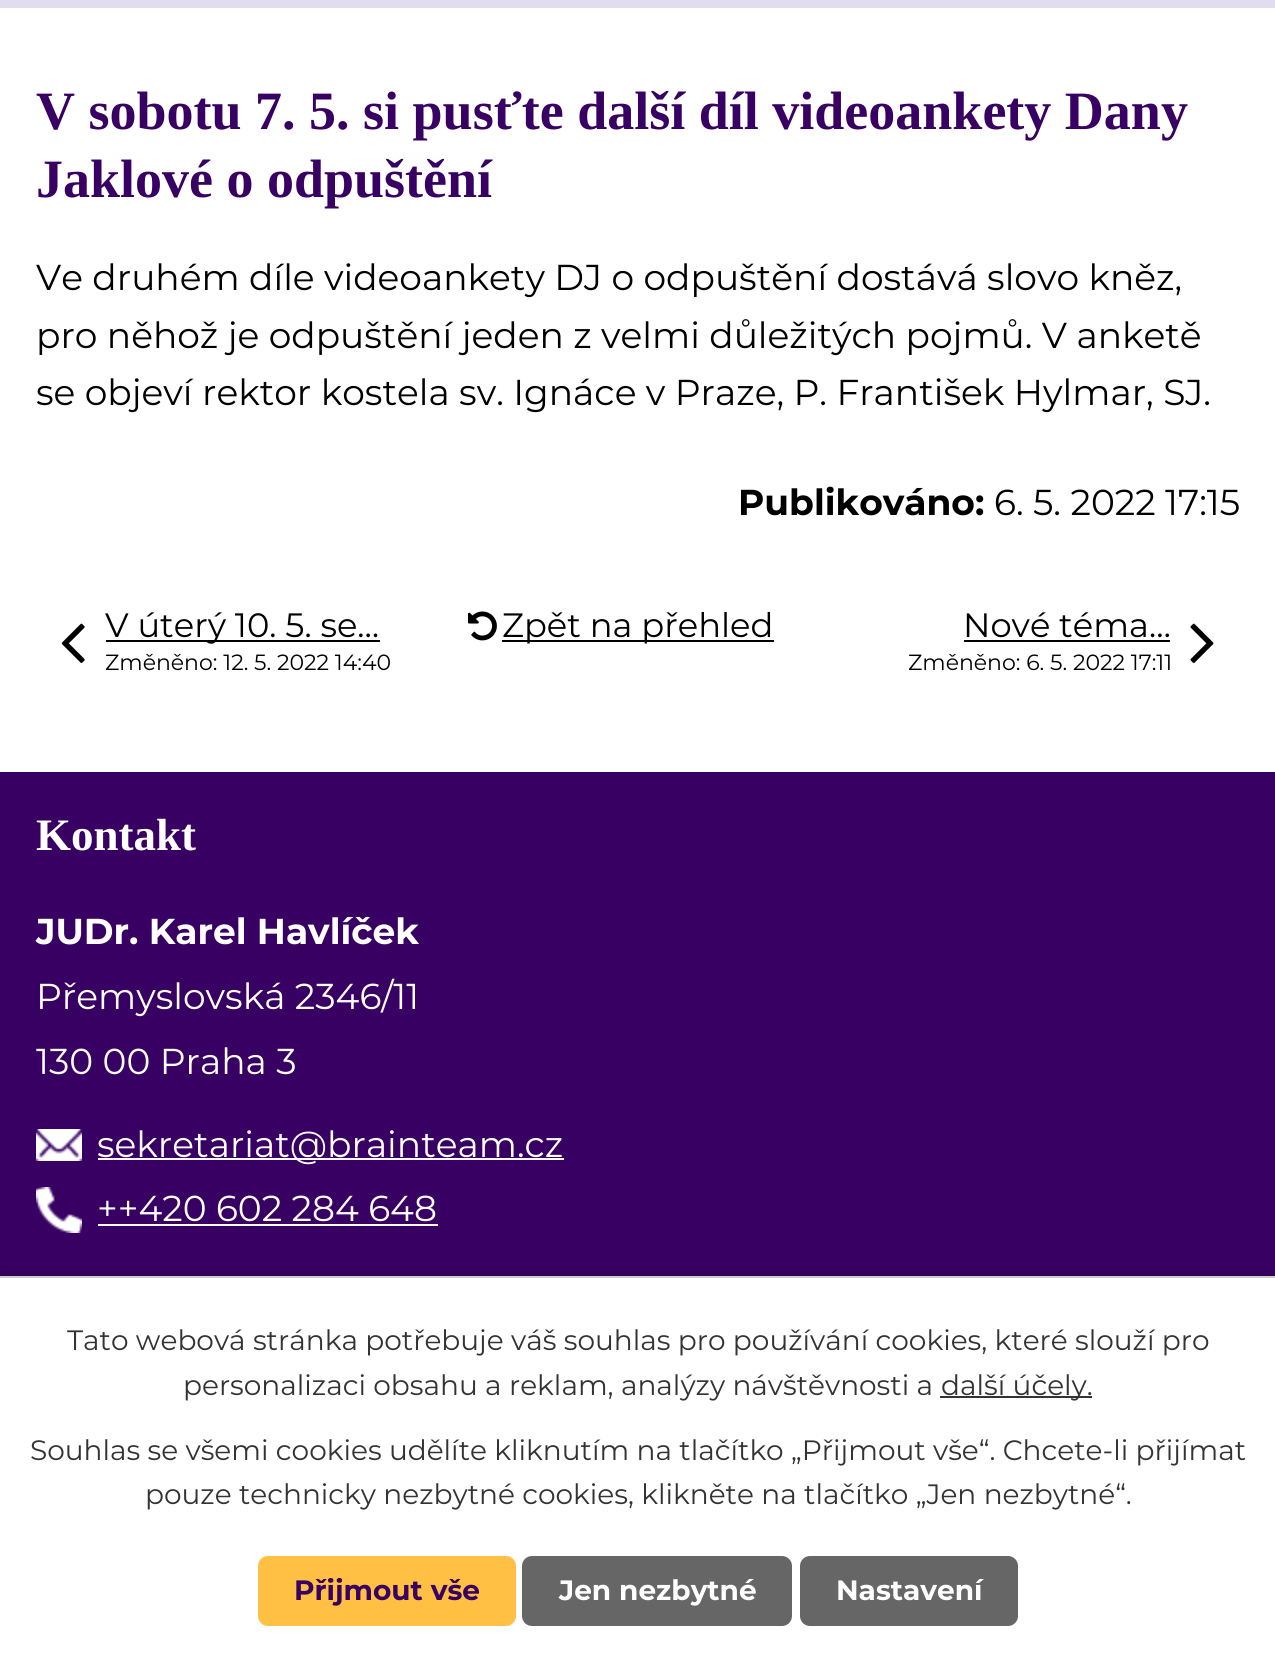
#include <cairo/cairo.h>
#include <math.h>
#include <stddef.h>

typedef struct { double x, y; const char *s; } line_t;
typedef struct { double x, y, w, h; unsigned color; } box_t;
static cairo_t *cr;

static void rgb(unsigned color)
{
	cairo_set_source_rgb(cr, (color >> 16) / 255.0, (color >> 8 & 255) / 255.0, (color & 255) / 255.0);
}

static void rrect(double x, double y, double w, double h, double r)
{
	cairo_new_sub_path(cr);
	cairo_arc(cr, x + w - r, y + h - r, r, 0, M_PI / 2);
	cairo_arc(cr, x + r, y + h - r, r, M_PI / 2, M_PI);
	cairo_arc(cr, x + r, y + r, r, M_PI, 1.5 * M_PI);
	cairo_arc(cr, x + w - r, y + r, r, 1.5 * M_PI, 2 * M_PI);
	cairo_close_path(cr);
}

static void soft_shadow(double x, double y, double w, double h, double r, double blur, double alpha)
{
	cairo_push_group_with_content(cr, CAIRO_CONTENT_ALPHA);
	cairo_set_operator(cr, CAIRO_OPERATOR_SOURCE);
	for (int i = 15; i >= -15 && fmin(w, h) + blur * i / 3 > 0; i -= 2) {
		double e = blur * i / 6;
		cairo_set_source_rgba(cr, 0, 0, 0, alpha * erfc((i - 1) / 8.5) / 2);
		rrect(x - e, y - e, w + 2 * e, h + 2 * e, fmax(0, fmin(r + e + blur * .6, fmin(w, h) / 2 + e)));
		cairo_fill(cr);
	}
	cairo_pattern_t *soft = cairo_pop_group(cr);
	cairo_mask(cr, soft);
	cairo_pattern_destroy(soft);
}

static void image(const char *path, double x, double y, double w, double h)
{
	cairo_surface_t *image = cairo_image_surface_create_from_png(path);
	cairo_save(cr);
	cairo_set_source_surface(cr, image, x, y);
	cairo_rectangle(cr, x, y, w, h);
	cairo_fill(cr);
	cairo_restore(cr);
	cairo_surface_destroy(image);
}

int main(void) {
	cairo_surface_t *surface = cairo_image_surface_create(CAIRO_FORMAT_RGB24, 1275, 1663);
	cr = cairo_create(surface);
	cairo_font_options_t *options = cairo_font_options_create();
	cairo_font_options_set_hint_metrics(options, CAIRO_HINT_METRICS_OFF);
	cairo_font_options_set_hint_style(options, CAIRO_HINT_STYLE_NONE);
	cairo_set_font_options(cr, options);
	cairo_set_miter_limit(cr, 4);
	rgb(0xffffff);
	cairo_paint(cr);
	rgb(0xe2ddee);
	cairo_rectangle(cr, 0, 0, 1275, 8);
	cairo_fill(cr);
	image("img/1.png", 61, 623, 24, 40);
	rgb(0x000000);
	cairo_rectangle(cr, 106, 640, 274, 2);
	cairo_fill(cr);
	image("img/2.png", 468, 611, 29, 30);
	cairo_rectangle(cr, 502, 640, 272, 2);
	cairo_fill(cr);
	cairo_rectangle(cr, 964, 640, 206, 2);
	cairo_fill(cr);
	image("img/3.png", 1190, 623, 24, 40);
	rgb(0x380063);
	cairo_rectangle(cr, 0, 772, 1275, 504);
	cairo_fill(cr);
	image("img/4.png", 36, 1129, 46, 32);
	rgb(0xffffff);
	cairo_rectangle(cr, 98, 1158, 466, 2);
	cairo_fill(cr);
	image("img/5.png", 36, 1187, 46, 46);
	cairo_rectangle(cr, 98, 1224, 340, 2);
	cairo_fill(cr);
	rgb(0x000000);
	soft_shadow(0, 1276, 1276, 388, 0, 5, 0.2);
	{
		static const box_t items[] = {
			{0, 1278, 1275, 385, 0xffffff},
			{0, 1276, 1275, 2, 0xcccccc},
			{940, 1396, 152, 2, 0x333333},
		};
		for (size_t i = 0; i < sizeof items / sizeof *items; i++) {
			rgb(items[i].color);
			cairo_rectangle(cr, items[i].x, items[i].y, items[i].w, items[i].h);
			cairo_fill(cr);
		}
	}
	rgb(0xffc043);
	rrect(258, 1556, 258, 70, 10);
	cairo_fill(cr);
	rgb(0x666666);
	rrect(522, 1556, 270, 70, 10);
	cairo_fill(cr);
	rrect(800, 1556, 218, 70, 10);
	cairo_fill(cr);
	cairo_select_font_face(cr, "Liberation Serif", CAIRO_FONT_SLANT_NORMAL, CAIRO_FONT_WEIGHT_BOLD);
	cairo_set_font_size(cr, 54);
	rgb(0x380063);
	cairo_move_to(cr, 36, 129);
	cairo_show_text(cr, "V sobotu 7. 5. si pusťte další díl videoankety Dany");
	cairo_move_to(cr, 36, 197);
	cairo_show_text(cr, "Jaklové o odpuštění");
	cairo_select_font_face(cr, "Montserrat", CAIRO_FONT_SLANT_NORMAL, CAIRO_FONT_WEIGHT_NORMAL);
	cairo_set_font_size(cr, 36);
	rgb(0x000000);
	{
		static const line_t items[] = {
			{36, 290, "Ve druhém díle videoankety DJ o odpuštění dostává slovo kněz,"},
			{36, 348, "pro něhož je odpuštění jeden z velmi důležitých pojmů. V anketě"},
			{36, 405, "se objeví rektor kostela sv. Ignáce v Praze, P. František Hylmar, SJ."},
		};
		for (size_t i = 0; i < sizeof items / sizeof *items; i++) {
			cairo_move_to(cr, items[i].x, items[i].y);
			cairo_show_text(cr, items[i].s);
		}
	}
	cairo_select_font_face(cr, "Montserrat", CAIRO_FONT_SLANT_NORMAL, CAIRO_FONT_WEIGHT_BOLD);
	cairo_move_to(cr, 738, 515);
	cairo_show_text(cr, "Publikováno:");
	cairo_select_font_face(cr, "Montserrat", CAIRO_FONT_SLANT_NORMAL, CAIRO_FONT_WEIGHT_NORMAL);
	cairo_move_to(cr, 994, 515);
	cairo_show_text(cr, "6. 5. 2022 17:15");
	cairo_set_font_size(cr, 33.75);
	cairo_move_to(cr, 105, 637);
	cairo_show_text(cr, "V úterý 10. 5. se…");
	cairo_set_font_size(cr, 22);
	cairo_move_to(cr, 105, 670);
	cairo_show_text(cr, "Změněno: 12. 5. 2022 14:40");
	cairo_set_font_size(cr, 33.75);
	cairo_move_to(cr, 502, 637);
	cairo_show_text(cr, "Zpět na přehled");
	cairo_move_to(cr, 963, 637);
	cairo_show_text(cr, "Nové téma…");
	cairo_set_font_size(cr, 22);
	cairo_move_to(cr, 908, 670);
	cairo_show_text(cr, "Změněno: 6. 5. 2022 17:11");
	cairo_select_font_face(cr, "Liberation Serif", CAIRO_FONT_SLANT_NORMAL, CAIRO_FONT_WEIGHT_BOLD);
	cairo_set_font_size(cr, 45);
	rgb(0xffffff);
	cairo_move_to(cr, 36, 850);
	cairo_show_text(cr, "Kontakt");
	cairo_select_font_face(cr, "Montserrat", CAIRO_FONT_SLANT_NORMAL, CAIRO_FONT_WEIGHT_BOLD);
	cairo_set_font_size(cr, 36);
	cairo_move_to(cr, 36, 944);
	cairo_show_text(cr, "JUDr. Karel Havlíček");
	cairo_select_font_face(cr, "Montserrat", CAIRO_FONT_SLANT_NORMAL, CAIRO_FONT_WEIGHT_NORMAL);
	{
		static const line_t items[] = {
			{36, 1009, "Přemyslovská 2346/11"},
			{36, 1074, "130 00 Praha 3"},
			{97, 1157, "sekretariat@brainteam.cz"},
			{97, 1221, "++420 602 284 648"},
		};
		for (size_t i = 0; i < sizeof items / sizeof *items; i++) {
			cairo_move_to(cr, items[i].x, items[i].y);
			cairo_show_text(cr, items[i].s);
		}
	}
	cairo_set_font_size(cr, 28);
	rgb(0x333333);
	{
		static const line_t items[] = {
			{67, 1350, "Tato webová stránka potřebuje váš souhlas pro používání cookies, které slouží pro"},
			{183, 1395, "personalizaci obsahu a reklam, analýzy návštěvnosti a"},
			{941, 1395, "další účely."},
			{30, 1460, "Souhlas se všemi cookies udělíte kliknutím na tlačítko „Přijmout vše“. Chcete-li přijímat"},
			{145, 1504, "pouze technicky nezbytné cookies, klikněte na tlačítko „Jen nezbytné“."},
		};
		for (size_t i = 0; i < sizeof items / sizeof *items; i++) {
			cairo_move_to(cr, items[i].x, items[i].y);
			cairo_show_text(cr, items[i].s);
		}
	}
	cairo_select_font_face(cr, "Montserrat", CAIRO_FONT_SLANT_NORMAL, CAIRO_FONT_WEIGHT_BOLD);
	rgb(0x380063);
	cairo_move_to(cr, 294, 1600);
	cairo_show_text(cr, "Přijmout vše");
	rgb(0xffffff);
	cairo_move_to(cr, 559, 1600);
	cairo_show_text(cr, "Jen nezbytné");
	cairo_move_to(cr, 836, 1600);
	cairo_show_text(cr, "Nastavení");
	cairo_surface_write_to_png(surface, "page.png");
	cairo_font_options_destroy(options);
	cairo_destroy(cr);
	cairo_surface_destroy(surface);
	return 0;
}
